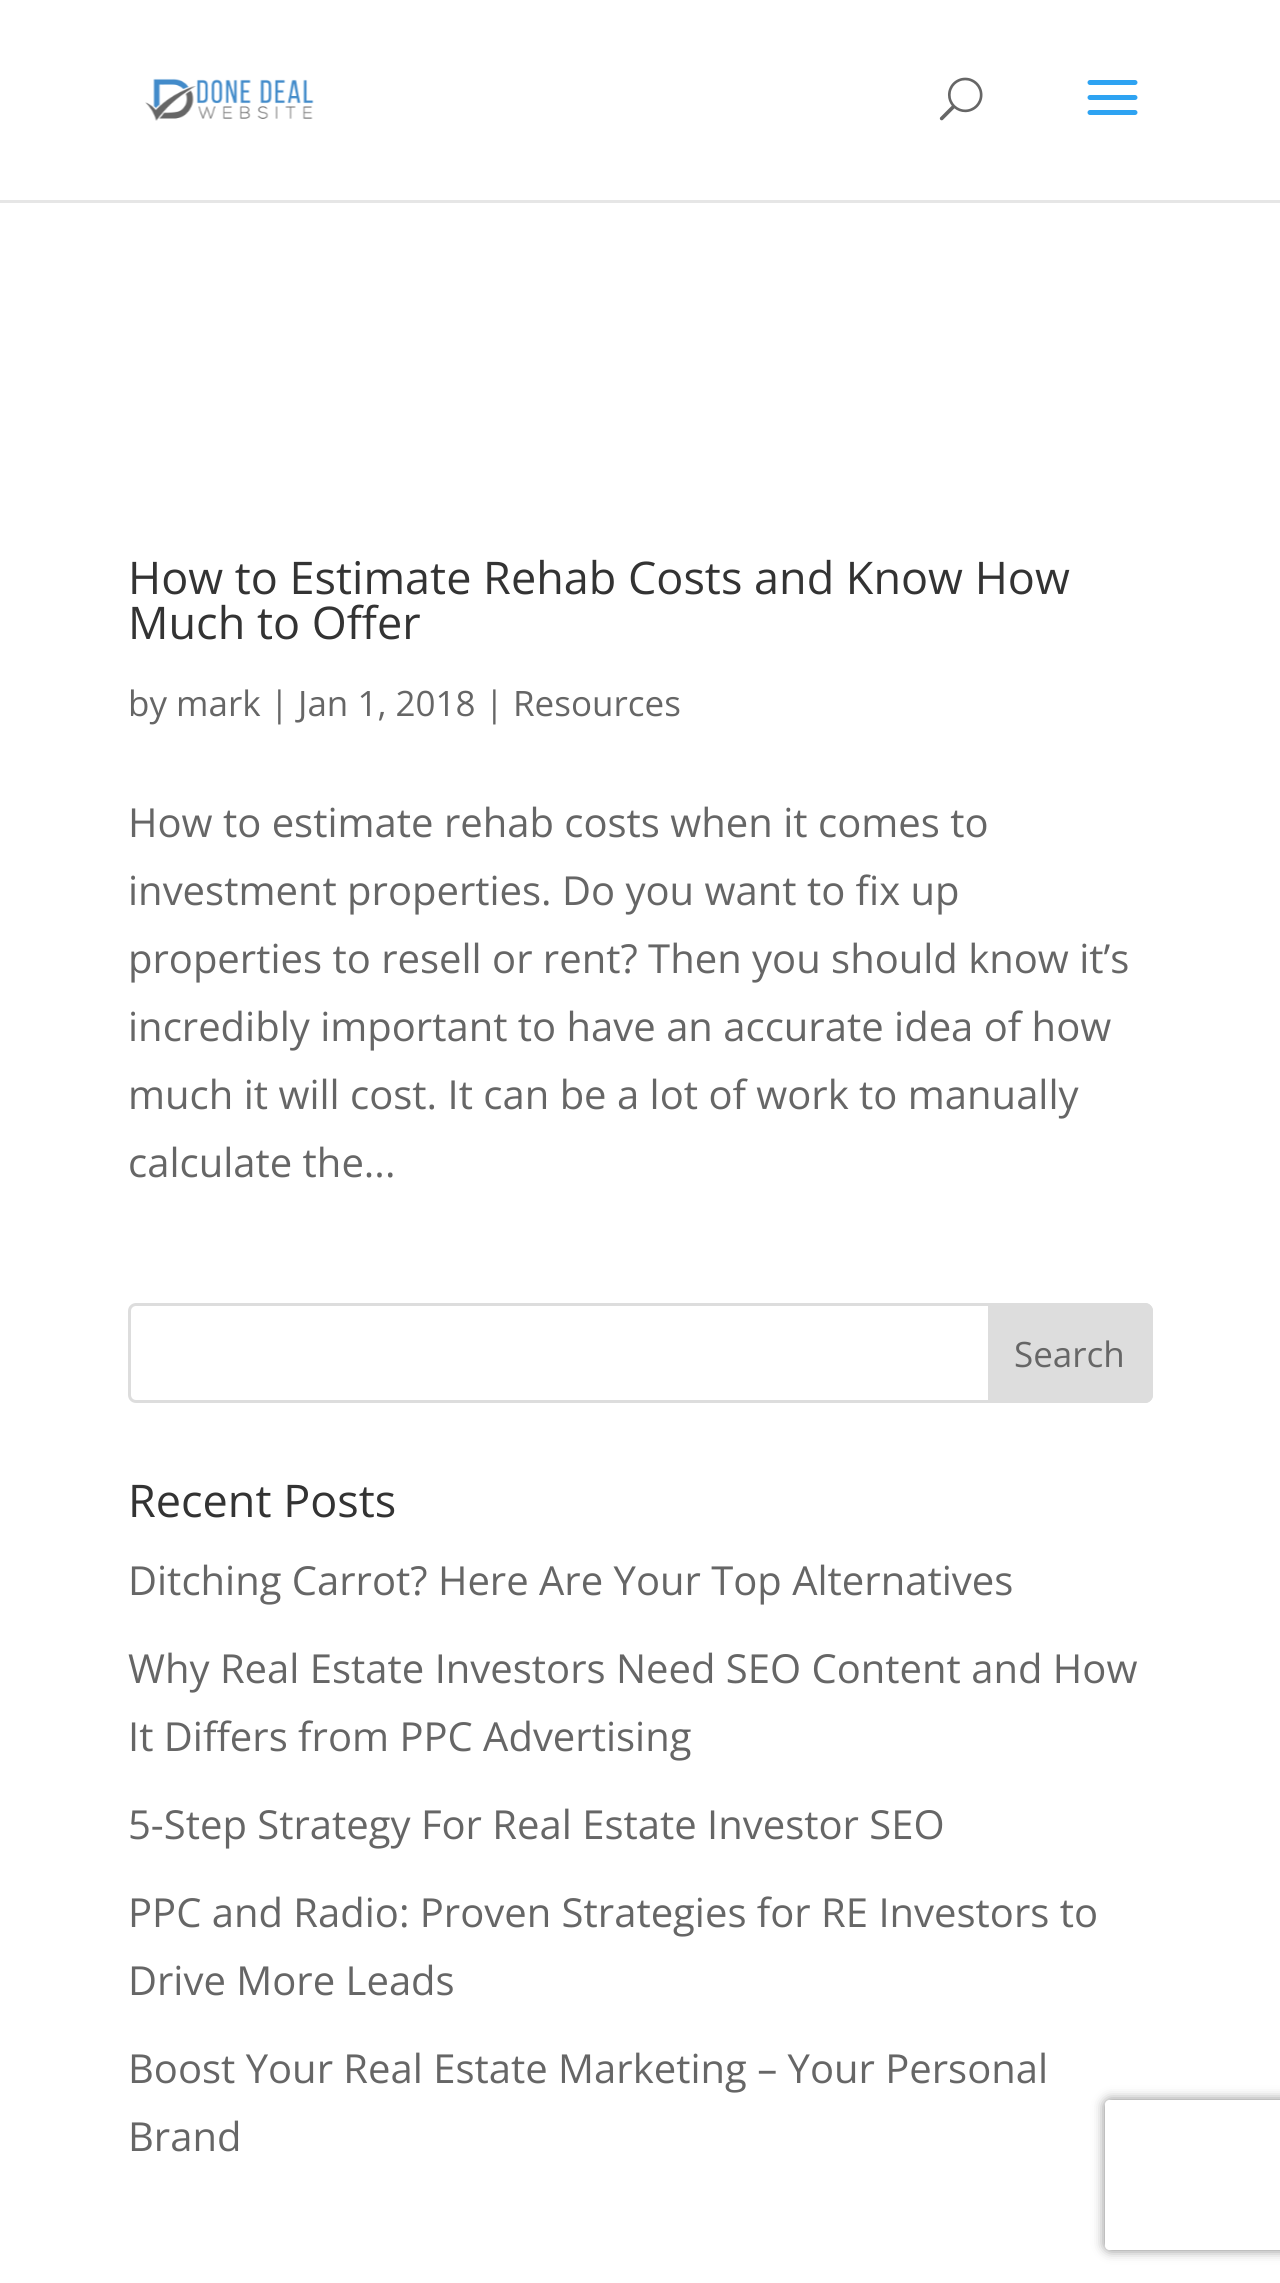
#include <cairo/cairo.h>
#include <math.h>
#include <stddef.h>

typedef struct { double x, y; const char *s; } line_t;
static cairo_t *cr;

static void rgb(unsigned color)
{
	cairo_set_source_rgb(cr, (color >> 16) / 255.0, (color >> 8 & 255) / 255.0, (color & 255) / 255.0);
}

static void rrect(double x, double y, double w, double h, double r)
{
	cairo_new_sub_path(cr);
	cairo_arc(cr, x + w - r, y + h - r, r, 0, M_PI / 2);
	cairo_arc(cr, x + r, y + h - r, r, M_PI / 2, M_PI);
	cairo_arc(cr, x + r, y + r, r, M_PI, 1.5 * M_PI);
	cairo_arc(cr, x + w - r, y + r, r, 1.5 * M_PI, 2 * M_PI);
	cairo_close_path(cr);
}

static void soft_shadow(double x, double y, double w, double h, double r, double blur, double alpha)
{
	cairo_push_group_with_content(cr, CAIRO_CONTENT_ALPHA);
	cairo_set_operator(cr, CAIRO_OPERATOR_SOURCE);
	for (int i = 15; i >= -15 && fmin(w, h) + blur * i / 3 > 0; i -= 2) {
		double e = blur * i / 6;
		cairo_set_source_rgba(cr, 0, 0, 0, alpha * erfc((i - 1) / 8.5) / 2);
		rrect(x - e, y - e, w + 2 * e, h + 2 * e, fmax(0, fmin(r + e + blur * .6, fmin(w, h) / 2 + e)));
		cairo_fill(cr);
	}
	cairo_pattern_t *soft = cairo_pop_group(cr);
	cairo_mask(cr, soft);
	cairo_pattern_destroy(soft);
}

static void image(const char *path, double x, double y, double w, double h)
{
	cairo_surface_t *image = cairo_image_surface_create_from_png(path);
	cairo_save(cr);
	cairo_set_source_surface(cr, image, x, y);
	cairo_rectangle(cr, x, y, w, h);
	cairo_fill(cr);
	cairo_restore(cr);
	cairo_surface_destroy(image);
}

int main(void) {
	cairo_surface_t *surface = cairo_image_surface_create(CAIRO_FORMAT_RGB24, 1280, 2283);
	cr = cairo_create(surface);
	cairo_font_options_t *options = cairo_font_options_create();
	cairo_font_options_set_hint_metrics(options, CAIRO_HINT_METRICS_OFF);
	cairo_font_options_set_hint_style(options, CAIRO_HINT_STYLE_NONE);
	cairo_set_font_options(cr, options);
	cairo_set_miter_limit(cr, 4);
	rgb(0xffffff);
	cairo_paint(cr);
	rgb(0xe6e6e6);
	cairo_rectangle(cr, 0, 200, 1280, 3);
	cairo_fill(cr);
	image("img/1.png", 145, 78, 169, 43);
	image("img/2.png", 939, 77, 44, 44);
	image("img/3.png", 1087, 80, 51, 35);
	rrect(129.5, 1304.5, 1022, 97, 6.5);
	rgb(0xdddddd);
	cairo_set_line_width(cr, 3);
	cairo_stroke(cr);
	cairo_new_path(cr);
	cairo_move_to(cr, 989.5, 1304.5);
	cairo_line_to(cr, 1145, 1304.5);
	cairo_curve_to(cr, 1148.5, 1304.5, 1151.5, 1307.5, 1151.5, 1311);
	cairo_line_to(cr, 1151.5, 1395);
	cairo_curve_to(cr, 1151.5, 1398.5, 1148.5, 1401.5, 1145, 1401.5);
	cairo_line_to(cr, 989.5, 1401.5);
	cairo_close_path(cr);
	cairo_fill_preserve(cr);
	cairo_stroke(cr);
	cairo_save(cr);
	cairo_set_fill_rule(cr, CAIRO_FILL_RULE_EVEN_ODD);
	cairo_new_path(cr);
	cairo_move_to(cr, 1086, 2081);
	cairo_line_to(cr, 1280, 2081);
	cairo_line_to(cr, 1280, 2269);
	cairo_line_to(cr, 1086, 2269);
	cairo_close_path(cr);
	cairo_move_to(cr, 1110, 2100);
	cairo_line_to(cr, 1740, 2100);
	cairo_curve_to(cr, 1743, 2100, 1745, 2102, 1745, 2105);
	cairo_line_to(cr, 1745, 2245);
	cairo_curve_to(cr, 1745, 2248, 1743, 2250, 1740, 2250);
	cairo_line_to(cr, 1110, 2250);
	cairo_curve_to(cr, 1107, 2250, 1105, 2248, 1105, 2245);
	cairo_line_to(cr, 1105, 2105);
	cairo_curve_to(cr, 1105, 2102, 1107, 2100, 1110, 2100);
	cairo_close_path(cr);
	cairo_clip(cr);
	rgb(0x808080);
	soft_shadow(1105, 2100, 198, 150, 5, 6, 1);
	cairo_restore(cr);
	cairo_select_font_face(cr, "Open Sans", CAIRO_FONT_SLANT_NORMAL, CAIRO_FONT_WEIGHT_NORMAL);
	cairo_set_font_size(cr, 45);
	rgb(0x333333);
	cairo_move_to(cr, 128, 594);
	cairo_show_text(cr, "How to Estimate Rehab Costs and Know How");
	cairo_move_to(cr, 128, 639);
	cairo_show_text(cr, "Much to Offer");
	cairo_set_font_size(cr, 35);
	rgb(0x666666);
	cairo_move_to(cr, 128, 716);
	cairo_show_text(cr, "by mark | Jan 1, 2018 | Resources");
	cairo_set_font_size(cr, 40);
	{
		static const line_t items[] = {
			{128, 837, "How to estimate rehab costs when it comes to"},
			{128, 905, "investment properties. Do you want to fix up"},
			{128, 973, "properties to resell or rent? Then you should know it’s"},
			{128, 1041, "incredibly important to have an accurate idea of how"},
			{128, 1109, "much it will cost. It can be a lot of work to manually"},
			{128, 1177, "calculate the..."},
		};
		for (size_t i = 0; i < sizeof items / sizeof *items; i++) {
			cairo_move_to(cr, items[i].x, items[i].y);
			cairo_show_text(cr, items[i].s);
		}
	}
	cairo_set_font_size(cr, 35);
	cairo_move_to(cr, 1014, 1367);
	cairo_show_text(cr, "Search");
	cairo_set_font_size(cr, 45);
	rgb(0x333333);
	cairo_move_to(cr, 128, 1517);
	cairo_show_text(cr, "Recent Posts");
	cairo_set_font_size(cr, 40);
	rgb(0x666666);
	{
		static const line_t items[] = {
			{128, 1595, "Ditching Carrot? Here Are Your Top Alternatives"},
			{128, 1683, "Why Real Estate Investors Need SEO Content and How"},
			{128, 1751, "It Differs from PPC Advertising"},
			{128, 1839, "5-Step Strategy For Real Estate Investor SEO"},
			{128, 1927, "PPC and Radio: Proven Strategies for RE Investors to"},
			{128, 1995, "Drive More Leads"},
			{128, 2083, "Boost Your Real Estate Marketing – Your Personal"},
			{128, 2151, "Brand"},
		};
		for (size_t i = 0; i < sizeof items / sizeof *items; i++) {
			cairo_move_to(cr, items[i].x, items[i].y);
			cairo_show_text(cr, items[i].s);
		}
	}
	cairo_surface_write_to_png(surface, "page.png");
	cairo_font_options_destroy(options);
	cairo_destroy(cr);
	cairo_surface_destroy(surface);
	return 0;
}
